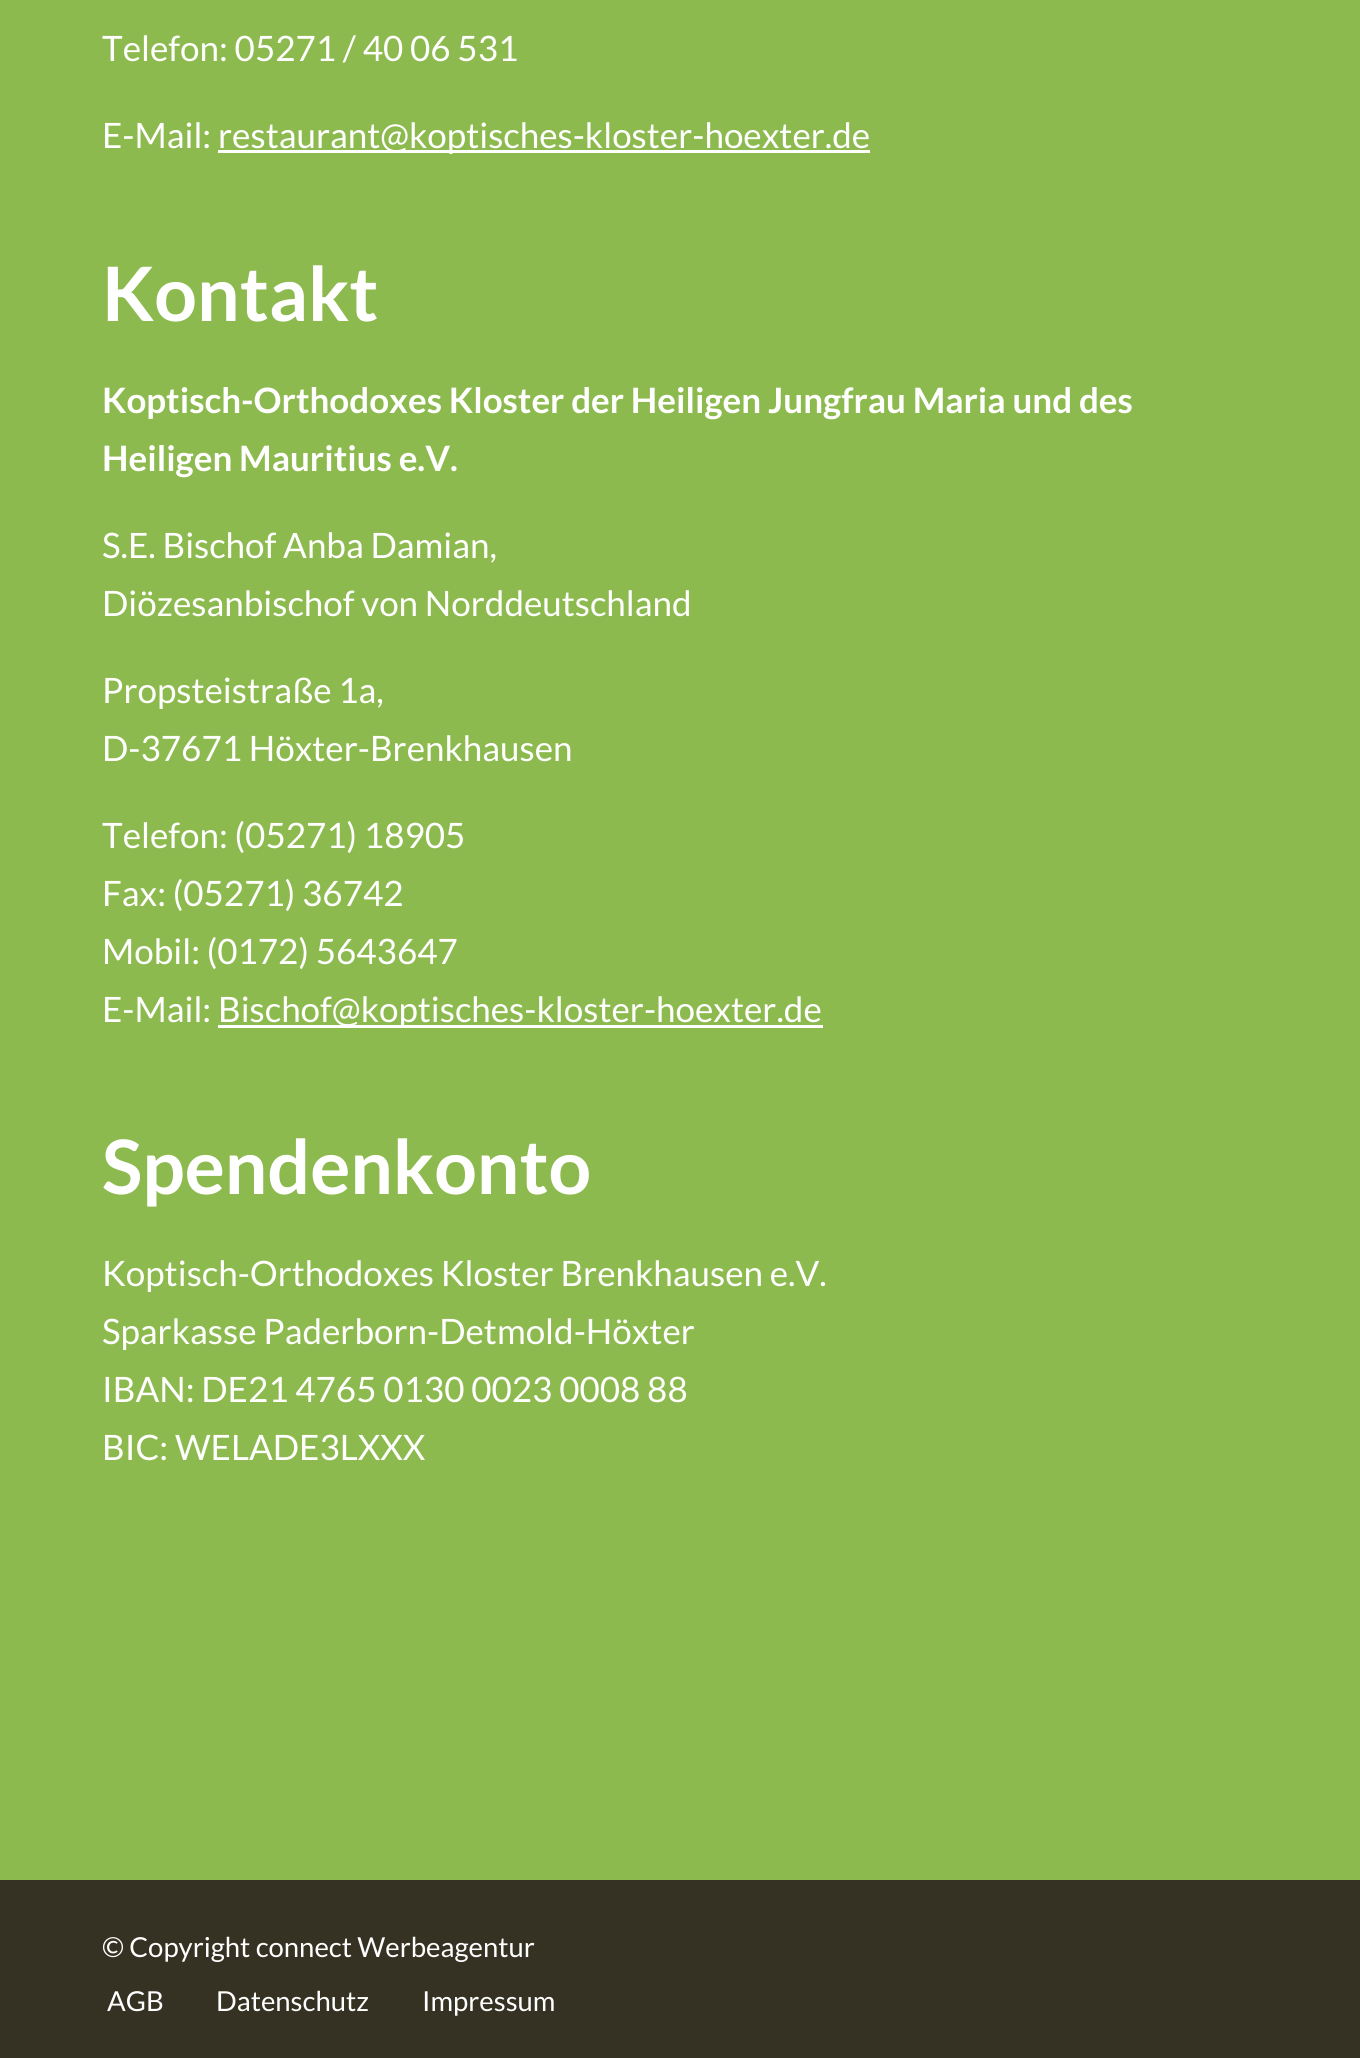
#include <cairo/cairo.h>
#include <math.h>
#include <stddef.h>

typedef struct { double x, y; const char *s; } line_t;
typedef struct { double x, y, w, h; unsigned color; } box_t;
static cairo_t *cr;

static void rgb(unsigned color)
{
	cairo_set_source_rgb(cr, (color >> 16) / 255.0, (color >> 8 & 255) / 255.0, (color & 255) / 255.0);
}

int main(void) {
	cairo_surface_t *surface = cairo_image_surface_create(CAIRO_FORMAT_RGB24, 1360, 2058);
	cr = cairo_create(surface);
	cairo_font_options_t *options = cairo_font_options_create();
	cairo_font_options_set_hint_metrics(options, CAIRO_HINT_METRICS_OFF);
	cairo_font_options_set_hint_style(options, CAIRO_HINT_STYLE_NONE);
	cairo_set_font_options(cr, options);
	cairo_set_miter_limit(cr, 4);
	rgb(0x8dba4e);
	cairo_paint(cr);
	{
		static const box_t items[] = {
			{218, 150, 652, 3, 0xffffff},
			{218, 1025, 605, 3, 0xffffff},
			{0, 1880, 1360, 178, 0x363223},
		};
		for (size_t i = 0; i < sizeof items / sizeof *items; i++) {
			rgb(items[i].color);
			cairo_rectangle(cr, items[i].x, items[i].y, items[i].w, items[i].h);
			cairo_fill(cr);
		}
	}
	cairo_select_font_face(cr, "Lato", CAIRO_FONT_SLANT_NORMAL, CAIRO_FONT_WEIGHT_NORMAL);
	cairo_set_font_size(cr, 35);
	rgb(0xffffff);
	{
		static const line_t items[] = {
			{102, 61, "Telefon: 05271 / 40 06 531"},
			{102, 148, "E-Mail:"},
			{218, 148, "restaurant@koptisches-kloster-hoexter.de"},
		};
		for (size_t i = 0; i < sizeof items / sizeof *items; i++) {
			cairo_move_to(cr, items[i].x, items[i].y);
			cairo_show_text(cr, items[i].s);
		}
	}
	cairo_select_font_face(cr, "Lato", CAIRO_FONT_SLANT_NORMAL, CAIRO_FONT_WEIGHT_BOLD);
	cairo_set_font_size(cr, 75);
	cairo_move_to(cr, 102, 321);
	cairo_show_text(cr, "Kontakt");
	cairo_set_font_size(cr, 35);
	cairo_move_to(cr, 102, 413);
	cairo_show_text(cr, "Koptisch-Orthodoxes Kloster der Heiligen Jungfrau Maria und des");
	cairo_move_to(cr, 102, 471);
	cairo_show_text(cr, "Heiligen Mauritius e.V.");
	cairo_select_font_face(cr, "Lato", CAIRO_FONT_SLANT_NORMAL, CAIRO_FONT_WEIGHT_NORMAL);
	{
		static const line_t items[] = {
			{102, 558, "S.E. Bischof Anba Damian,"},
			{102, 616, "Diözesanbischof von Norddeutschland"},
			{102, 703, "Propsteistraße 1a,"},
			{102, 761, "D-37671 Höxter-Brenkhausen"},
			{102, 848, "Telefon: (05271) 18905"},
			{102, 906, "Fax: (05271) 36742"},
			{102, 964, "Mobil: (0172) 5643647"},
			{102, 1022, "E-Mail:"},
			{218, 1022, "Bischof@koptisches-kloster-hoexter.de"},
		};
		for (size_t i = 0; i < sizeof items / sizeof *items; i++) {
			cairo_move_to(cr, items[i].x, items[i].y);
			cairo_show_text(cr, items[i].s);
		}
	}
	cairo_select_font_face(cr, "Lato", CAIRO_FONT_SLANT_NORMAL, CAIRO_FONT_WEIGHT_BOLD);
	cairo_set_font_size(cr, 75);
	cairo_move_to(cr, 102, 1194);
	cairo_show_text(cr, "Spendenkonto");
	cairo_select_font_face(cr, "Lato", CAIRO_FONT_SLANT_NORMAL, CAIRO_FONT_WEIGHT_NORMAL);
	cairo_set_font_size(cr, 35);
	{
		static const line_t items[] = {
			{102, 1286, "Koptisch-Orthodoxes Kloster Brenkhausen e.V."},
			{102, 1344, "Sparkasse Paderborn-Detmold-Höxter"},
			{102, 1402, "IBAN: DE21 4765 0130 0023 0008 88"},
			{102, 1460, "BIC: WELADE3LXXX"},
		};
		for (size_t i = 0; i < sizeof items / sizeof *items; i++) {
			cairo_move_to(cr, items[i].x, items[i].y);
			cairo_show_text(cr, items[i].s);
		}
	}
	cairo_set_font_size(cr, 27.5);
	{
		static const line_t items[] = {
			{102, 1957, "© Copyright connect Werbeagentur"},
			{107, 2011, "AGB"},
			{216, 2011, "Datenschutz"},
			{422, 2011, "Impressum"},
		};
		for (size_t i = 0; i < sizeof items / sizeof *items; i++) {
			cairo_move_to(cr, items[i].x, items[i].y);
			cairo_show_text(cr, items[i].s);
		}
	}
	cairo_surface_write_to_png(surface, "page.png");
	cairo_font_options_destroy(options);
	cairo_destroy(cr);
	cairo_surface_destroy(surface);
	return 0;
}
